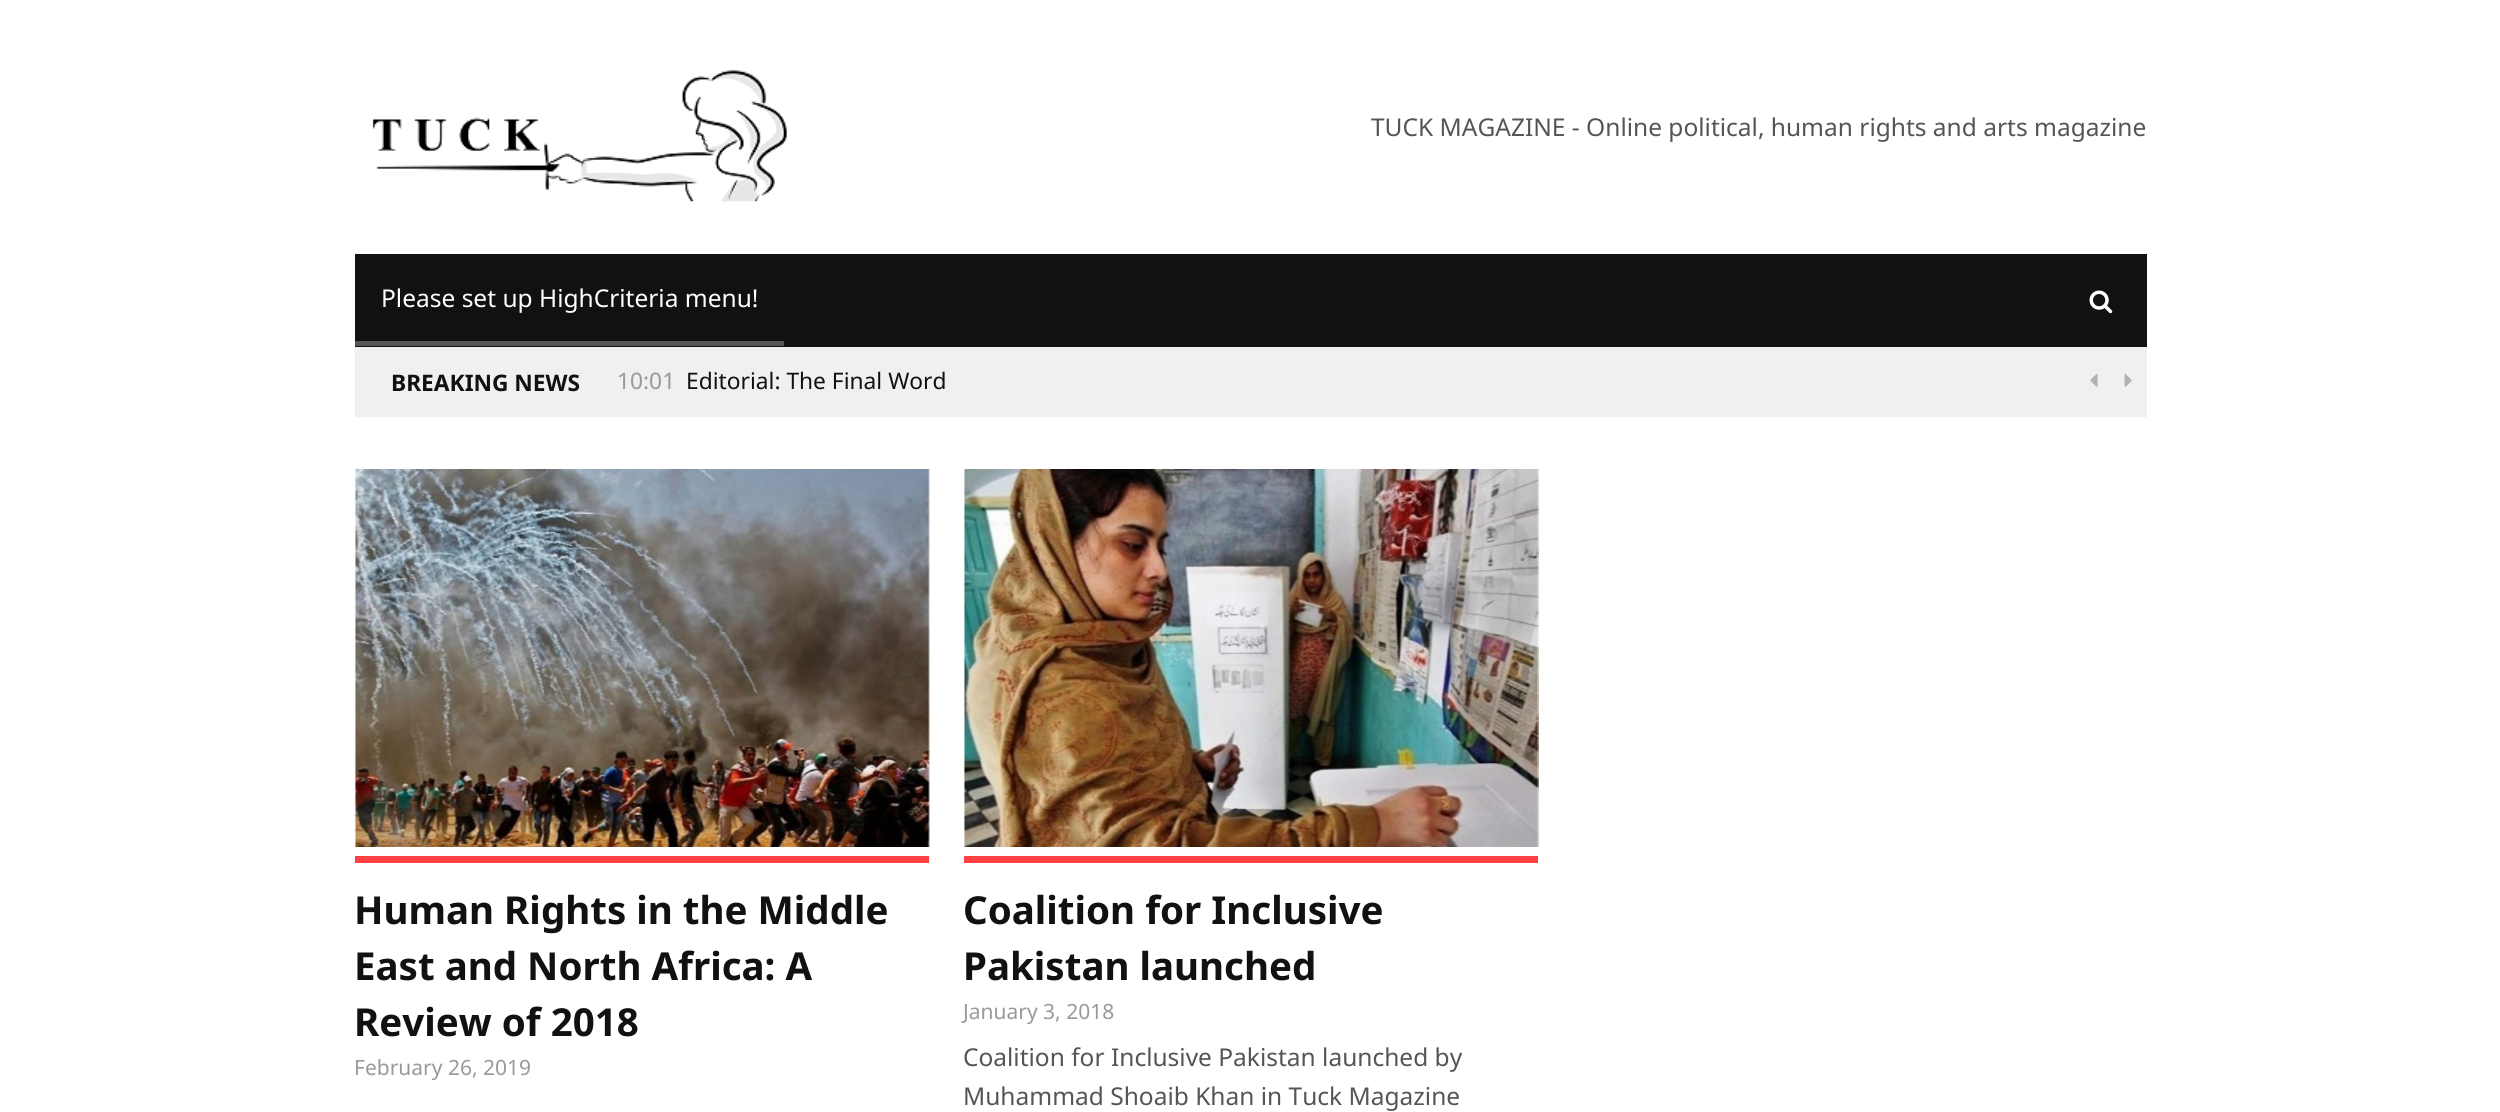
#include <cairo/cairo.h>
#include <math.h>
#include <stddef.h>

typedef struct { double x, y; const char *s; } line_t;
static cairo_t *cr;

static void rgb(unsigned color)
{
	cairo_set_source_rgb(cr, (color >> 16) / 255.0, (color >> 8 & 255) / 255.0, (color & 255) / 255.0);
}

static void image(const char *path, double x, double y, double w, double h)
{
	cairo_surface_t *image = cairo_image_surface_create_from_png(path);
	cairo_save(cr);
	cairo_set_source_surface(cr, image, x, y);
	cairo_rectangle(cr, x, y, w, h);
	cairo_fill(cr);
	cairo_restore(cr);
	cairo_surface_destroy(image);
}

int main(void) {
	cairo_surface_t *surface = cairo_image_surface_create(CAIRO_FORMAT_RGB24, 2500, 1112);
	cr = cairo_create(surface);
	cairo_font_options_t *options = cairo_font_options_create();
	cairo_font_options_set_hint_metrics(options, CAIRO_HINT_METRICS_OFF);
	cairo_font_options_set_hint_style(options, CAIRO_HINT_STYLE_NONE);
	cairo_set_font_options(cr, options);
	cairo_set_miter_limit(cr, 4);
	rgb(0xffffff);
	cairo_paint(cr);
	image("img/1.png", 372, 70, 415, 132);
	rgb(0x111111);
	cairo_rectangle(cr, 355, 254, 1792, 93);
	cairo_fill(cr);
	rgb(0x555555);
	cairo_rectangle(cr, 355, 341, 429, 5);
	cairo_fill(cr);
	image("img/2.png", 2089, 290, 24, 24);
	rgb(0xf0f0f0);
	cairo_rectangle(cr, 355, 347, 1792, 70);
	cairo_fill(cr);
	image("img/3.png", 2090, 374, 8, 13);
	image("img/4.png", 2124, 374, 8, 13);
	image("img/5.png", 354, 469, 576, 378);
	rgb(0xff4040);
	cairo_rectangle(cr, 355, 856, 574, 7);
	cairo_fill(cr);
	image("img/6.png", 963, 469, 576, 378);
	cairo_rectangle(cr, 964, 856, 574, 7);
	cairo_fill(cr);
	cairo_select_font_face(cr, "Noto Sans", CAIRO_FONT_SLANT_NORMAL, CAIRO_FONT_WEIGHT_NORMAL);
	cairo_set_font_size(cr, 24.5);
	rgb(0x555555);
	cairo_move_to(cr, 1371, 136);
	cairo_show_text(cr, "TUCK MAGAZINE - Online political, human rights and arts magazine");
	rgb(0xffffff);
	cairo_move_to(cr, 381, 307);
	cairo_show_text(cr, "Please set up HighCriteria menu!");
	cairo_select_font_face(cr, "Noto Sans", CAIRO_FONT_SLANT_NORMAL, CAIRO_FONT_WEIGHT_BOLD);
	cairo_set_font_size(cr, 22.75);
	rgb(0x111111);
	cairo_move_to(cr, 391, 391);
	cairo_show_text(cr, "BREAKING NEWS");
	cairo_select_font_face(cr, "Noto Sans", CAIRO_FONT_SLANT_NORMAL, CAIRO_FONT_WEIGHT_NORMAL);
	rgb(0x999999);
	cairo_move_to(cr, 617, 389);
	cairo_show_text(cr, "10:01");
	rgb(0x111111);
	cairo_move_to(cr, 686, 389);
	cairo_show_text(cr, "Editorial: The Final Word");
	cairo_select_font_face(cr, "Noto Sans", CAIRO_FONT_SLANT_NORMAL, CAIRO_FONT_WEIGHT_BOLD);
	cairo_set_font_size(cr, 38.5);
	{
		static const line_t items[] = {
			{354, 924, "Human Rights in the Middle"},
			{354, 980, "East and North Africa: A"},
			{354, 1036, "Review of 2018"},
		};
		for (size_t i = 0; i < sizeof items / sizeof *items; i++) {
			cairo_move_to(cr, items[i].x, items[i].y);
			cairo_show_text(cr, items[i].s);
		}
	}
	cairo_select_font_face(cr, "Noto Sans", CAIRO_FONT_SLANT_NORMAL, CAIRO_FONT_WEIGHT_NORMAL);
	cairo_set_font_size(cr, 21);
	rgb(0x999999);
	cairo_move_to(cr, 354, 1075);
	cairo_show_text(cr, "February 26, 2019");
	cairo_select_font_face(cr, "Noto Sans", CAIRO_FONT_SLANT_NORMAL, CAIRO_FONT_WEIGHT_BOLD);
	cairo_set_font_size(cr, 38.5);
	rgb(0x111111);
	cairo_move_to(cr, 963, 924);
	cairo_show_text(cr, "Coalition for Inclusive");
	cairo_move_to(cr, 963, 980);
	cairo_show_text(cr, "Pakistan launched");
	cairo_select_font_face(cr, "Noto Sans", CAIRO_FONT_SLANT_NORMAL, CAIRO_FONT_WEIGHT_NORMAL);
	cairo_set_font_size(cr, 21);
	rgb(0x999999);
	cairo_move_to(cr, 963, 1019);
	cairo_show_text(cr, "January 3, 2018");
	cairo_set_font_size(cr, 24.5);
	rgb(0x555555);
	cairo_move_to(cr, 963, 1066);
	cairo_show_text(cr, "Coalition for Inclusive Pakistan launched by");
	cairo_move_to(cr, 963, 1105);
	cairo_show_text(cr, "Muhammad Shoaib Khan in Tuck Magazine");
	cairo_surface_write_to_png(surface, "page.png");
	cairo_font_options_destroy(options);
	cairo_destroy(cr);
	cairo_surface_destroy(surface);
	return 0;
}
